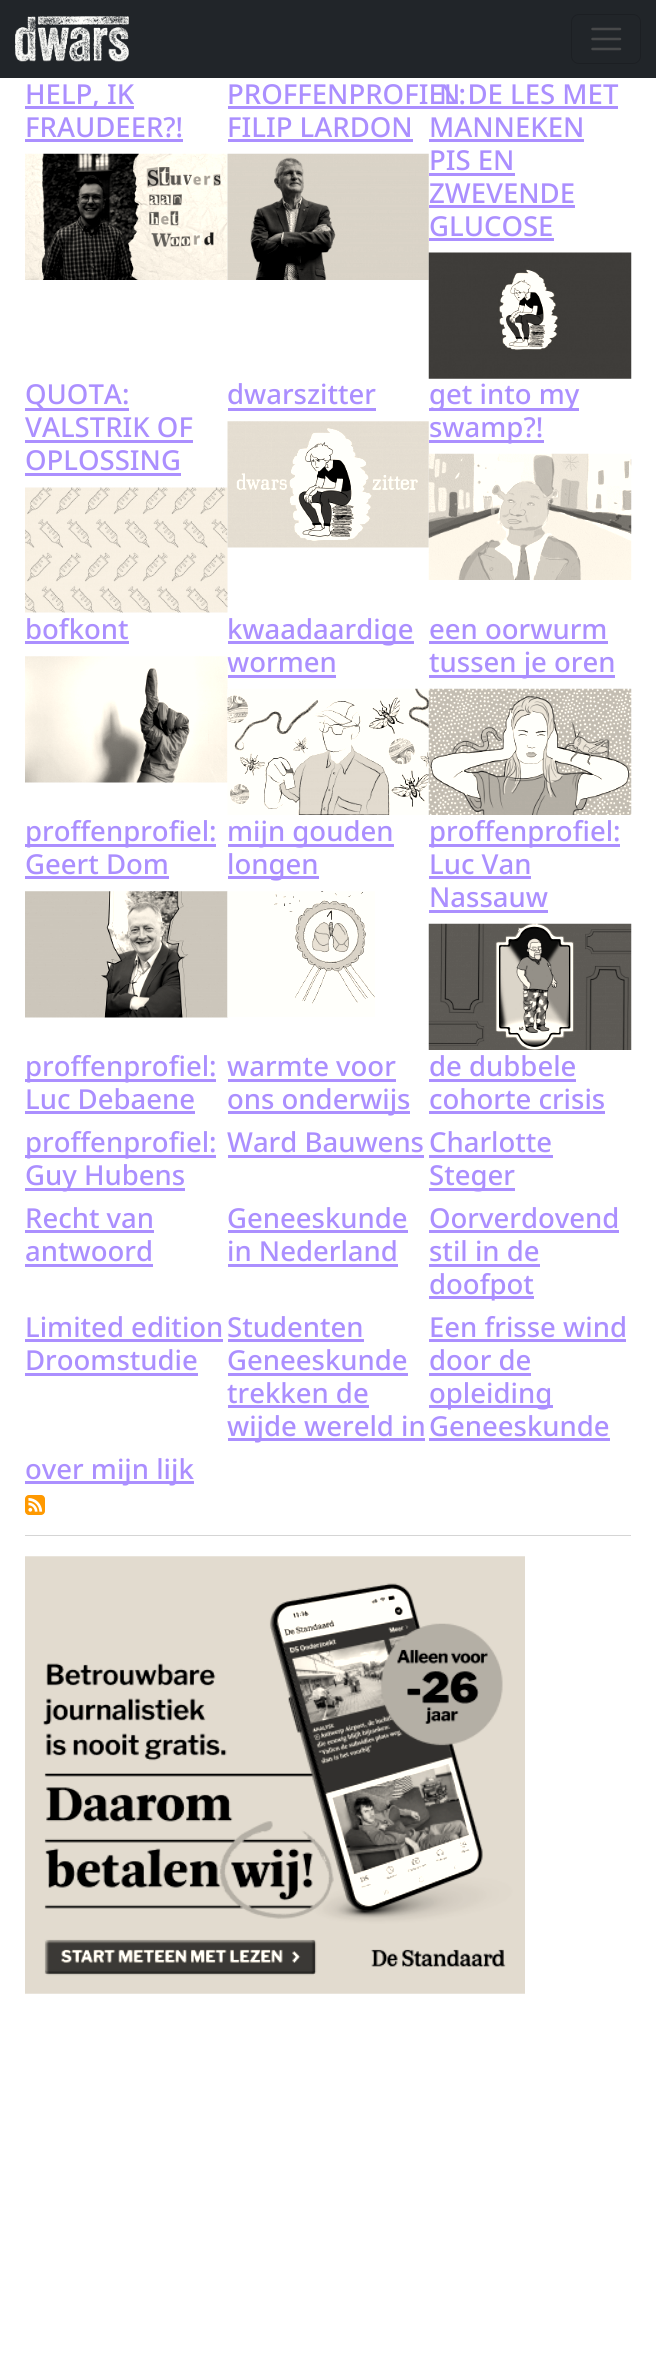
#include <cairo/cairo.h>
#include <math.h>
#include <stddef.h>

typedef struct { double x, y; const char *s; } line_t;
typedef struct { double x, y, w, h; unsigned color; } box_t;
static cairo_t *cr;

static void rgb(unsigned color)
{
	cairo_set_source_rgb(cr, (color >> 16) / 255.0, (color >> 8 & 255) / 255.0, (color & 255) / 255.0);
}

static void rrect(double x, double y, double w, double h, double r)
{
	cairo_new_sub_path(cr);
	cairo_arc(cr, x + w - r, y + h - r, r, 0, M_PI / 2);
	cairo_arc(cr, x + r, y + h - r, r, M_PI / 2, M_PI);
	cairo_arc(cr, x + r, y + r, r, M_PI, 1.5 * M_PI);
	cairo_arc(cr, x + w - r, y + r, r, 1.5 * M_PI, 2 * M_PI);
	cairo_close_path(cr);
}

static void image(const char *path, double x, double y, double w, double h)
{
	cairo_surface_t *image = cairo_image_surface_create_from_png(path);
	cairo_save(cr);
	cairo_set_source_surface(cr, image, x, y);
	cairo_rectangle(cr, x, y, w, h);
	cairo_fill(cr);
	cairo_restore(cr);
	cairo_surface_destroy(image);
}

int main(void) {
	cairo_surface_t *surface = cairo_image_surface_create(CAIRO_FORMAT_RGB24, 656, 2378);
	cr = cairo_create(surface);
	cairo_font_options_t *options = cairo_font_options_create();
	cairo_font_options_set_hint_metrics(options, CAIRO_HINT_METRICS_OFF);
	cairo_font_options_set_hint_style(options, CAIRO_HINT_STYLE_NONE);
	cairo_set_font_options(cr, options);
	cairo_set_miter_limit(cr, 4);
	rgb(0xffffff);
	cairo_paint(cr);
	rgb(0x212529);
	cairo_rectangle(cr, 0, 0, 656, 78);
	cairo_fill(cr);
	image("img/1.png", 15, 16, 114, 46);
	rrect(571.5, 14.5, 69, 49, 7.5);
	rgb(0x1c1f23);
	cairo_set_line_width(cr, 1);
	cairo_stroke(cr);
	cairo_new_path(cr);
	cairo_move_to(cr, 592.5, 29);
	cairo_line_to(cr, 620, 29);
	cairo_move_to(cr, 592.5, 39);
	cairo_line_to(cr, 620, 39);
	cairo_move_to(cr, 592.5, 49);
	cairo_line_to(cr, 620, 49);
	rgb(0x48494a);
	cairo_set_line_width(cr, 2.5);
	cairo_set_line_cap(cr, CAIRO_LINE_CAP_ROUND);
	cairo_stroke(cr);
	rgb(0xab8fff);
	cairo_rectangle(cr, 25, 106, 109, 3);
	cairo_fill(cr);
	cairo_rectangle(cr, 25, 139, 158, 3);
	cairo_fill(cr);
	image("img/2.png", 25, 153, 203, 127);
	cairo_rectangle(cr, 228, 106, 390, 3);
	cairo_fill(cr);
	cairo_rectangle(cr, 228, 139, 185, 3);
	cairo_fill(cr);
	image("img/3.png", 227, 153, 202, 127);
	{
		static const box_t items[] = {
			{429, 139, 155, 3, 0xab8fff},
			{429, 173, 86, 3, 0xab8fff},
			{429, 205, 146, 3, 0xab8fff},
			{429, 238, 125, 3, 0xab8fff},
		};
		for (size_t i = 0; i < sizeof items / sizeof *items; i++) {
			rgb(items[i].color);
			cairo_rectangle(cr, items[i].x, items[i].y, items[i].w, items[i].h);
			cairo_fill(cr);
		}
	}
	image("img/4.png", 428, 252, 204, 127);
	{
		static const box_t items[] = {
			{25, 408, 104, 3, 0xab8fff},
			{25, 440, 168, 3, 0xab8fff},
			{25, 473, 156, 3, 0xab8fff},
		};
		for (size_t i = 0; i < sizeof items / sizeof *items; i++) {
			rgb(items[i].color);
			cairo_rectangle(cr, items[i].x, items[i].y, items[i].w, items[i].h);
			cairo_fill(cr);
		}
	}
	image("img/5.png", 25, 487, 203, 126);
	cairo_rectangle(cr, 228, 408, 148, 3);
	cairo_fill(cr);
	image("img/6.png", 227, 421, 202, 127);
	cairo_rectangle(cr, 429, 408, 150, 3);
	cairo_fill(cr);
	cairo_rectangle(cr, 429, 440, 115, 3);
	cairo_fill(cr);
	image("img/7.png", 428, 453, 204, 127);
	{
		static const box_t items[] = {
			{25, 641, 104, 3, 0xab8fff},
			{228, 641, 186, 3, 0xab8fff},
			{228, 675, 108, 3, 0xab8fff},
			{429, 641, 179, 3, 0xab8fff},
			{429, 675, 186, 3, 0xab8fff},
			{25, 844, 191, 3, 0xab8fff},
			{25, 876, 144, 3, 0xab8fff},
		};
		for (size_t i = 0; i < sizeof items / sizeof *items; i++) {
			rgb(items[i].color);
			cairo_rectangle(cr, items[i].x, items[i].y, items[i].w, items[i].h);
			cairo_fill(cr);
		}
	}
	image("img/11.png", 25, 891, 203, 127);
	cairo_rectangle(cr, 228, 844, 166, 3);
	cairo_fill(cr);
	cairo_rectangle(cr, 228, 876, 91, 3);
	cairo_fill(cr);
	image("img/12.png", 227, 891, 148, 126);
	{
		static const box_t items[] = {
			{429, 844, 191, 3, 0xab8fff},
			{429, 876, 102, 3, 0xab8fff},
			{429, 910, 119, 3, 0xab8fff},
		};
		for (size_t i = 0; i < sizeof items / sizeof *items; i++) {
			rgb(items[i].color);
			cairo_rectangle(cr, items[i].x, items[i].y, items[i].w, items[i].h);
			cairo_fill(cr);
		}
	}
	image("img/13.png", 428, 923, 204, 127);
	{
		static const box_t items[] = {
			{25, 1079, 191, 3, 0xab8fff},
			{25, 1111, 170, 3, 0xab8fff},
			{228, 1079, 168, 3, 0xab8fff},
			{228, 1111, 182, 3, 0xab8fff},
			{429, 1079, 147, 3, 0xab8fff},
			{429, 1111, 176, 3, 0xab8fff},
			{25, 1155, 191, 3, 0xab8fff},
			{25, 1188, 160, 3, 0xab8fff},
			{228, 1155, 196, 3, 0xab8fff},
			{429, 1155, 124, 3, 0xab8fff},
			{429, 1188, 86, 3, 0xab8fff},
			{25, 1230, 129, 3, 0xab8fff},
			{25, 1264, 128, 3, 0xab8fff},
			{228, 1230, 180, 3, 0xab8fff},
			{228, 1264, 170, 3, 0xab8fff},
			{429, 1230, 190, 3, 0xab8fff},
			{429, 1264, 111, 3, 0xab8fff},
			{429, 1296, 105, 3, 0xab8fff},
			{25, 1339, 198, 3, 0xab8fff},
			{25, 1373, 173, 3, 0xab8fff},
			{228, 1339, 136, 3, 0xab8fff},
			{228, 1373, 180, 3, 0xab8fff},
			{228, 1405, 141, 3, 0xab8fff},
			{228, 1438, 197, 3, 0xab8fff},
			{429, 1339, 197, 3, 0xab8fff},
			{429, 1373, 102, 3, 0xab8fff},
			{429, 1405, 124, 3, 0xab8fff},
			{429, 1438, 181, 3, 0xab8fff},
			{25, 1481, 169, 3, 0xab8fff},
		};
		for (size_t i = 0; i < sizeof items / sizeof *items; i++) {
			rgb(items[i].color);
			cairo_rectangle(cr, items[i].x, items[i].y, items[i].w, items[i].h);
			cairo_fill(cr);
		}
	}
	image("img/14.png", 25, 1495, 20, 20);
	rgb(0xd5d5d5);
	cairo_rectangle(cr, 25, 1535, 606, 1);
	cairo_fill(cr);
	image("img/15.png", 25, 1556, 500, 438);
	cairo_select_font_face(cr, "Noto Sans Medium", CAIRO_FONT_SLANT_NORMAL, CAIRO_FONT_WEIGHT_NORMAL);
	cairo_set_font_size(cr, 27.5);
	rgb(0xab8fff);
	{
		static const line_t items[] = {
			{25, 104, "HELP, IK"},
			{25, 137, "FRAUDEER?!"},
			{227, 104, "PROFFENPROFIEL:"},
			{227, 137, "FILIP LARDON"},
			{439, 104, "N DE LES MET"},
			{429, 137, "MANNEKEN"},
			{429, 170, "PIS EN"},
			{429, 203, "ZWEVENDE"},
			{429, 236, "GLUCOSE"},
			{25, 404, "QUOTA:"},
			{25, 437, "VALSTRIK OF"},
			{25, 470, "OPLOSSING"},
			{227, 404, "dwarszitter"},
			{429, 404, "get into my"},
			{429, 437, "swamp?!"},
			{25, 639, "bofkont"},
			{227, 639, "kwaadaardige"},
			{227, 672, "wormen"},
		};
		for (size_t i = 0; i < sizeof items / sizeof *items; i++) {
			cairo_move_to(cr, items[i].x, items[i].y);
			cairo_show_text(cr, items[i].s);
		}
	}
	image("img/8.png", 25, 656, 203, 127);
	image("img/9.png", 227, 688, 202, 127);
	cairo_move_to(cr, 429, 639);
	cairo_show_text(cr, "een oorwurm");
	cairo_move_to(cr, 429, 672);
	cairo_show_text(cr, "tussen je oren");
	image("img/10.png", 428, 688, 204, 127);
	{
		static const line_t items[] = {
			{25, 841, "proffenprofiel:"},
			{25, 874, "Geert Dom"},
			{227, 841, "mijn gouden"},
			{227, 874, "longen"},
			{429, 841, "proffenprofiel:"},
			{429, 874, "Luc Van"},
			{429, 907, "Nassauw"},
			{25, 1076, "proffenprofiel:"},
			{25, 1109, "Luc Debaene"},
			{227, 1076, "warmte voor"},
			{227, 1109, "ons onderwijs"},
			{429, 1076, "de dubbele"},
			{429, 1109, "cohorte crisis"},
			{25, 1152, "proffenprofiel:"},
			{25, 1185, "Guy Hubens"},
			{227, 1152, "Ward Bauwens"},
			{429, 1152, "Charlotte"},
			{429, 1185, "Steger"},
			{25, 1228, "Recht van"},
			{25, 1261, "antwoord"},
			{227, 1228, "Geneeskunde"},
			{227, 1261, "in Nederland"},
			{429, 1228, "Oorverdovend"},
			{429, 1261, "stil in de"},
			{429, 1294, "doofpot"},
			{25, 1337, "Limited edition"},
			{25, 1370, "Droomstudie"},
			{227, 1337, "Studenten"},
			{227, 1370, "Geneeskunde"},
			{227, 1403, "trekken de"},
			{227, 1436, "wijde wereld in"},
			{429, 1337, "Een frisse wind"},
			{429, 1370, "door de"},
			{429, 1403, "opleiding"},
			{429, 1436, "Geneeskunde"},
			{25, 1479, "over mijn lijk"},
		};
		for (size_t i = 0; i < sizeof items / sizeof *items; i++) {
			cairo_move_to(cr, items[i].x, items[i].y);
			cairo_show_text(cr, items[i].s);
		}
	}
	cairo_surface_write_to_png(surface, "page.png");
	cairo_font_options_destroy(options);
	cairo_destroy(cr);
	cairo_surface_destroy(surface);
	return 0;
}
